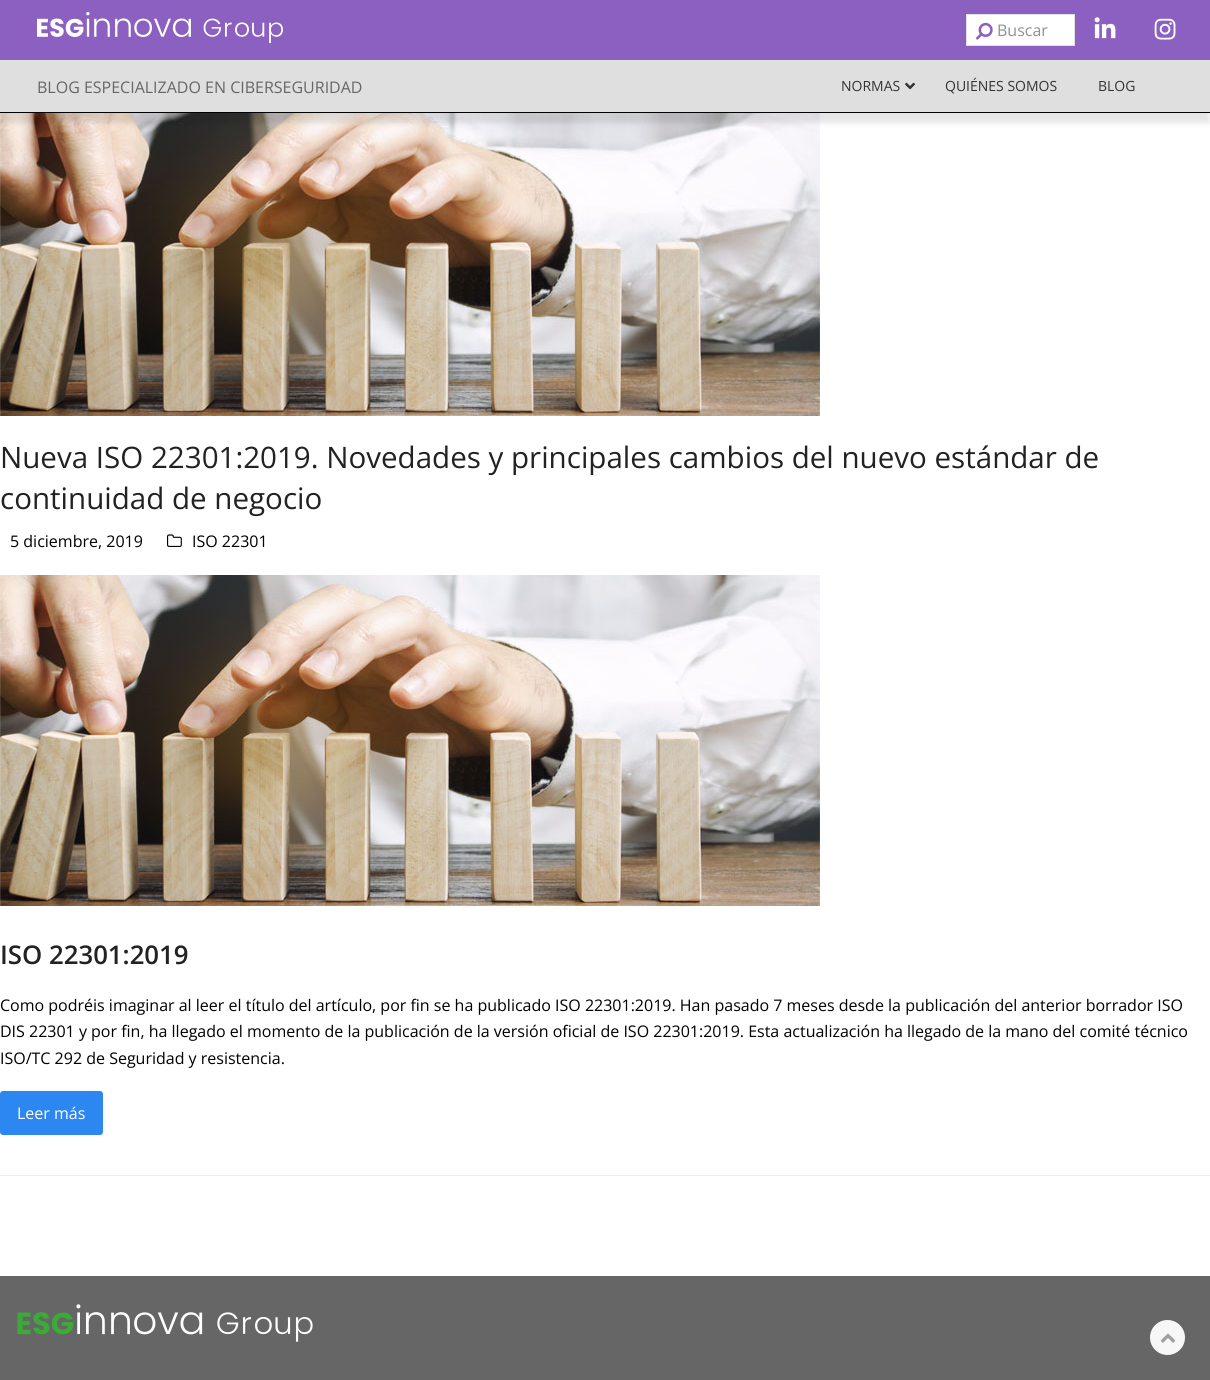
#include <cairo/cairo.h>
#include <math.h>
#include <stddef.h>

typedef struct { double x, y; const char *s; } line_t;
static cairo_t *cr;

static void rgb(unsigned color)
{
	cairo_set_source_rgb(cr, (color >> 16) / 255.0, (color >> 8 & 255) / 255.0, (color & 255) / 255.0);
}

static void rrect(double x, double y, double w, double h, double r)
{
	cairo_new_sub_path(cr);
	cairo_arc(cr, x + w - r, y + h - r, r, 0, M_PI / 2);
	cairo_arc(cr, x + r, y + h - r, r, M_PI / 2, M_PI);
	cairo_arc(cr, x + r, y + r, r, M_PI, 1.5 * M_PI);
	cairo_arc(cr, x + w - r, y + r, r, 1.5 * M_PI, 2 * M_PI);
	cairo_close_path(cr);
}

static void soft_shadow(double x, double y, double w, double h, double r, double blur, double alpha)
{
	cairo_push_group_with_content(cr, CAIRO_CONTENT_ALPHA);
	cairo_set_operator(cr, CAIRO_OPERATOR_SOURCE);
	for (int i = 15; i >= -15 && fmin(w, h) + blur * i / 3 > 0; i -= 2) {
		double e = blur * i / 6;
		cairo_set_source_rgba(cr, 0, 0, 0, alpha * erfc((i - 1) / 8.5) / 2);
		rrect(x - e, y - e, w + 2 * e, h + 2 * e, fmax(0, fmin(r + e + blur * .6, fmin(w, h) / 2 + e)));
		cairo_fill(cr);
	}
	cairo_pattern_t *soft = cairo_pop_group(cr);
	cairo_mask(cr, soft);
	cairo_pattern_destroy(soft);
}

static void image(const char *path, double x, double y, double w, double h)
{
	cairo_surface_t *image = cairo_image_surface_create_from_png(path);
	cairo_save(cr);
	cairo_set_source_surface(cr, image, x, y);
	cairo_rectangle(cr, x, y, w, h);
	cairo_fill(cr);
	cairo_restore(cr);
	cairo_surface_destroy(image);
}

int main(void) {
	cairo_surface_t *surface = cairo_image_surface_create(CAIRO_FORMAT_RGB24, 1210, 1380);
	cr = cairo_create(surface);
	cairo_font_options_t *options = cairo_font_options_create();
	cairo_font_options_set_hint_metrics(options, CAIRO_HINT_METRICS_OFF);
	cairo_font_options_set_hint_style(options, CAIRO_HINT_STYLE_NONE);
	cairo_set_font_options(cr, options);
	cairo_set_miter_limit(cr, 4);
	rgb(0xffffff);
	cairo_paint(cr);
	image("img/6.png", 0, 113, 820, 303);
	rgb(0x000000);
	soft_shadow(0, 10, 1210, 113, 0, 2.5, 0.1);
	rgb(0x8c60c1);
	cairo_rectangle(cr, 0, 0, 1210, 60);
	cairo_fill(cr);
	image("img/1.png", 37, 12, 246, 32);
	rgb(0xffffff);
	cairo_rectangle(cr, 966.5, 14.5, 108, 31);
	cairo_fill_preserve(cr);
	rgb(0xe1e1e1);
	cairo_set_line_width(cr, 1);
	cairo_stroke(cr);
	image("img/2.png", 976, 22, 17, 18);
	image("img/3.png", 1094, 17, 22, 22);
	image("img/4.png", 1154, 18, 22, 22);
	rgb(0xdfdfdf);
	cairo_rectangle(cr, 0, 60, 1210, 52);
	cairo_fill(cr);
	rgb(0x000000);
	cairo_rectangle(cr, 0, 112, 1210, 1);
	cairo_fill(cr);
	image("img/5.png", 905, 82, 10, 8);
	image("img/7.png", 167, 534, 15, 13);
	image("img/8.png", 0, 575, 820, 331);
	rgb(0x2c87f0);
	rrect(0, 1091, 103, 44, 3);
	cairo_fill(cr);
	rgb(0xeeeeee);
	cairo_rectangle(cr, 0, 1175, 1210, 1);
	cairo_fill(cr);
	rgb(0x666666);
	cairo_rectangle(cr, 0, 1276, 1210, 104);
	cairo_fill(cr);
	image("img/9.png", 17, 1304, 296, 38);
	rgb(0xf7f7f7);
	cairo_arc(cr, 1167.5, 1337.5, 17.5, 0, 2 * M_PI);
	cairo_fill(cr);
	image("img/10.png", 1160, 1333, 16, 10);
	cairo_select_font_face(cr, "Open Sans", CAIRO_FONT_SLANT_NORMAL, CAIRO_FONT_WEIGHT_NORMAL);
	cairo_set_font_size(cr, 16);
	rgb(0x909090);
	cairo_move_to(cr, 997, 36);
	cairo_show_text(cr, "Buscar");
	rgb(0x666666);
	cairo_move_to(cr, 37, 93);
	cairo_show_text(cr, "BLOG ESPECIALIZADO EN CIBERSEGURIDAD");
	cairo_set_font_size(cr, 14);
	rgb(0x333333);
	{
		static const line_t items[] = {
			{841, 91, "NORMAS"},
			{945, 91, "QUIÉNES SOMOS"},
			{1098, 91, "BLOG"},
		};
		for (size_t i = 0; i < sizeof items / sizeof *items; i++) {
			cairo_move_to(cr, items[i].x, items[i].y);
			cairo_show_text(cr, items[i].s);
		}
	}
	cairo_set_font_size(cr, 29.55);
	rgb(0x222222);
	cairo_move_to(cr, 0, 468);
	cairo_show_text(cr, "Nueva ISO 22301:2019. Novedades y principales cambios del nuevo estándar de");
	cairo_move_to(cr, 0, 509);
	cairo_show_text(cr, "continuidad de negocio");
	cairo_set_font_size(cr, 16);
	rgb(0x000000);
	cairo_move_to(cr, 10, 547);
	cairo_show_text(cr, "5 diciembre, 2019");
	cairo_move_to(cr, 192, 547);
	cairo_show_text(cr, "ISO 22301");
	cairo_select_font_face(cr, "Open Sans SemiBold", CAIRO_FONT_SLANT_NORMAL, CAIRO_FONT_WEIGHT_NORMAL);
	cairo_set_font_size(cr, 25.75);
	rgb(0x222222);
	cairo_move_to(cr, 0, 964);
	cairo_show_text(cr, "ISO 22301:2019");
	cairo_select_font_face(cr, "Open Sans", CAIRO_FONT_SLANT_NORMAL, CAIRO_FONT_WEIGHT_NORMAL);
	cairo_set_font_size(cr, 16);
	rgb(0x000000);
	{
		static const line_t items[] = {
			{0, 1011, "Como podréis imaginar al leer el título del artículo, por fin se ha publicado ISO 22301:2019. Han pasado 7 meses desde la publicación del anterior borrador ISO"},
			{0, 1037, "DIS 22301 y por fin, ha llegado el momento de la publicación de la versión oficial de ISO 22301:2019. Esta actualización ha llegado de la mano del comité técnico"},
			{0, 1064, "ISO/TC 292 de Seguridad y resistencia."},
		};
		for (size_t i = 0; i < sizeof items / sizeof *items; i++) {
			cairo_move_to(cr, items[i].x, items[i].y);
			cairo_show_text(cr, items[i].s);
		}
	}
	rgb(0xffffff);
	cairo_move_to(cr, 17, 1119);
	cairo_show_text(cr, "Leer más");
	cairo_surface_write_to_png(surface, "page.png");
	cairo_font_options_destroy(options);
	cairo_destroy(cr);
	cairo_surface_destroy(surface);
	return 0;
}
